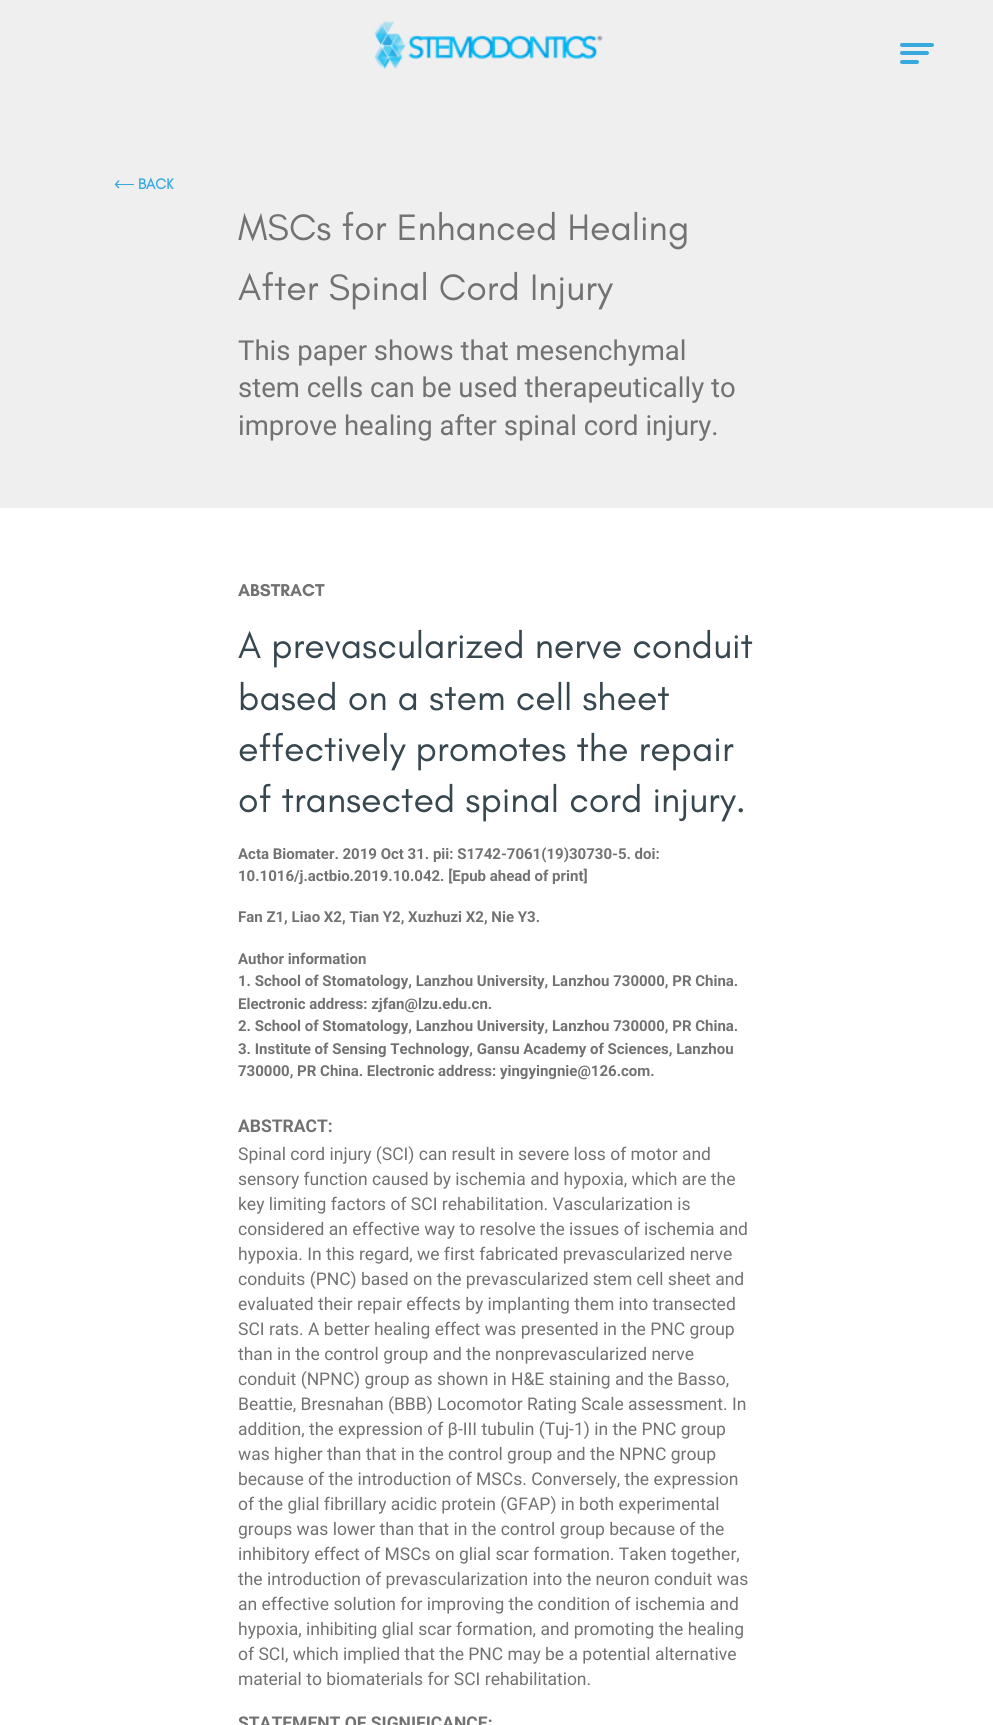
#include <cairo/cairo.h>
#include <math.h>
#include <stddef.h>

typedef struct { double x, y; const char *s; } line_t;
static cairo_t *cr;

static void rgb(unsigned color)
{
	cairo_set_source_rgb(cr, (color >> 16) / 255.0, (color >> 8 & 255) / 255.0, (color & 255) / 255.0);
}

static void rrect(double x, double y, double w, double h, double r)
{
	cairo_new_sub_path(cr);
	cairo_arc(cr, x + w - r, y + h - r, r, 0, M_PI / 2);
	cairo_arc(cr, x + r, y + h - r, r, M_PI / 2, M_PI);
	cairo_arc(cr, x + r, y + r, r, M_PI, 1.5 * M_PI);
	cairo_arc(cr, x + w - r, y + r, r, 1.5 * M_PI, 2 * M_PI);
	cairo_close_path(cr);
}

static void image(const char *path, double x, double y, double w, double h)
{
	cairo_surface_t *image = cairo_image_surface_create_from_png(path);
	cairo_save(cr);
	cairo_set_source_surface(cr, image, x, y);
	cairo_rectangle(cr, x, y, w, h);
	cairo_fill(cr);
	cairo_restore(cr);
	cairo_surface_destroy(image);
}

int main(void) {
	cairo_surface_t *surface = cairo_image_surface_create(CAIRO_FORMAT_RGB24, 993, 1725);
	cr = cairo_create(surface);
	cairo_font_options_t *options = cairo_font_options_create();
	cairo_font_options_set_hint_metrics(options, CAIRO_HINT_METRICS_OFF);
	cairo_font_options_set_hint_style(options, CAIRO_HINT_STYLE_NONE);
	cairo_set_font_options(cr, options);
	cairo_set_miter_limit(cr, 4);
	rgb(0xffffff);
	cairo_paint(cr);
	rgb(0xefefef);
	cairo_rectangle(cr, 0, 0, 993, 508);
	cairo_fill(cr);
	image("img/1.png", 373, 21, 230, 48);
	rgb(0x37a9df);
	rrect(900, 51, 29, 4, 2);
	cairo_fill(cr);
	rrect(900, 43, 34, 4, 2);
	cairo_fill(cr);
	rrect(900, 60, 19, 4, 2);
	cairo_fill(cr);
	cairo_rectangle(cr, 116, 184, 18, 1);
	cairo_fill(cr);
	cairo_new_path(cr);
	cairo_move_to(cr, 119, 180.5);
	cairo_line_to(cr, 115.5, 184.5);
	cairo_line_to(cr, 119, 188);
	cairo_set_line_width(cr, 1.4);
	cairo_stroke(cr);
	cairo_select_font_face(cr, "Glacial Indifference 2", CAIRO_FONT_SLANT_NORMAL, CAIRO_FONT_WEIGHT_BOLD);
	cairo_set_font_size(cr, 15);
	cairo_move_to(cr, 138, 189);
	cairo_show_text(cr, "BACK");
	cairo_select_font_face(cr, "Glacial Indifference", CAIRO_FONT_SLANT_NORMAL, CAIRO_FONT_WEIGHT_NORMAL);
	cairo_set_font_size(cr, 37.5);
	rgb(0x727272);
	cairo_move_to(cr, 238, 240);
	cairo_show_text(cr, "MSCs for Enhanced Healing");
	cairo_move_to(cr, 238, 300);
	cairo_show_text(cr, "After Spinal Cord Injury");
	cairo_select_font_face(cr, "Roboto", CAIRO_FONT_SLANT_NORMAL, CAIRO_FONT_WEIGHT_NORMAL);
	cairo_set_font_size(cr, 27.5);
	{
		static const line_t items[] = {
			{238, 360, "This paper shows that mesenchymal"},
			{238, 397, "stem cells can be used therapeutically to"},
			{238, 435, "improve healing after spinal cord injury."},
		};
		for (size_t i = 0; i < sizeof items / sizeof *items; i++) {
			cairo_move_to(cr, items[i].x, items[i].y);
			cairo_show_text(cr, items[i].s);
		}
	}
	cairo_select_font_face(cr, "Glacial Indifference", CAIRO_FONT_SLANT_NORMAL, CAIRO_FONT_WEIGHT_BOLD);
	cairo_set_font_size(cr, 17.5);
	cairo_move_to(cr, 238, 596);
	cairo_show_text(cr, "ABSTRACT");
	cairo_select_font_face(cr, "Glacial Indifference", CAIRO_FONT_SLANT_NORMAL, CAIRO_FONT_WEIGHT_NORMAL);
	cairo_set_font_size(cr, 37.5);
	rgb(0x37474f);
	{
		static const line_t items[] = {
			{238, 658, "A prevascularized nerve conduit"},
			{238, 710, "based on a stem cell sheet"},
			{238, 761, "effectively promotes the repair"},
			{238, 812, "of transected spinal cord injury."},
		};
		for (size_t i = 0; i < sizeof items / sizeof *items; i++) {
			cairo_move_to(cr, items[i].x, items[i].y);
			cairo_show_text(cr, items[i].s);
		}
	}
	cairo_select_font_face(cr, "Roboto", CAIRO_FONT_SLANT_NORMAL, CAIRO_FONT_WEIGHT_BOLD);
	cairo_set_font_size(cr, 15);
	rgb(0x727272);
	{
		static const line_t items[] = {
			{238, 859, "Acta Biomater. 2019 Oct 31. pii: S1742-7061(19)30730-5. doi:"},
			{238, 881, "10.1016/j.actbio.2019.10.042. [Epub ahead of print]"},
			{238, 922, "Fan Z1, Liao X2, Tian Y2, Xuzhuzi X2, Nie Y3."},
			{238, 964, "Author information"},
			{238, 986, "1. School of Stomatology, Lanzhou University, Lanzhou 730000, PR China."},
			{238, 1009, "Electronic address: zjfan@lzu.edu.cn."},
			{238, 1031, "2. School of Stomatology, Lanzhou University, Lanzhou 730000, PR China."},
			{238, 1054, "3. Institute of Sensing Technology, Gansu Academy of Sciences, Lanzhou"},
			{238, 1076, "730000, PR China. Electronic address: yingyingnie@126.com."},
		};
		for (size_t i = 0; i < sizeof items / sizeof *items; i++) {
			cairo_move_to(cr, items[i].x, items[i].y);
			cairo_show_text(cr, items[i].s);
		}
	}
	cairo_set_font_size(cr, 17.5);
	cairo_move_to(cr, 238, 1132);
	cairo_show_text(cr, "ABSTRACT:");
	cairo_select_font_face(cr, "Roboto", CAIRO_FONT_SLANT_NORMAL, CAIRO_FONT_WEIGHT_NORMAL);
	{
		static const line_t items[] = {
			{238, 1160, "Spinal cord injury (SCI) can result in severe loss of motor and"},
			{238, 1185, "sensory function caused by ischemia and hypoxia, which are the"},
			{238, 1210, "key limiting factors of SCI rehabilitation. Vascularization is"},
			{238, 1235, "considered an effective way to resolve the issues of ischemia and"},
			{238, 1260, "hypoxia. In this regard, we first fabricated prevascularized nerve"},
			{238, 1285, "conduits (PNC) based on the prevascularized stem cell sheet and"},
			{238, 1310, "evaluated their repair effects by implanting them into transected"},
			{238, 1335, "SCI rats. A better healing effect was presented in the PNC group"},
			{238, 1360, "than in the control group and the nonprevascularized nerve"},
			{238, 1385, "conduit (NPNC) group as shown in H&E staining and the Basso,"},
			{238, 1410, "Beattie, Bresnahan (BBB) Locomotor Rating Scale assessment. In"},
			{238, 1435, "addition, the expression of β-III tubulin (Tuj-1) in the PNC group"},
			{238, 1460, "was higher than that in the control group and the NPNC group"},
			{238, 1485, "because of the introduction of MSCs. Conversely, the expression"},
			{238, 1510, "of the glial fibrillary acidic protein (GFAP) in both experimental"},
			{238, 1535, "groups was lower than that in the control group because of the"},
			{238, 1560, "inhibitory effect of MSCs on glial scar formation. Taken together,"},
			{238, 1585, "the introduction of prevascularization into the neuron conduit was"},
			{238, 1610, "an effective solution for improving the condition of ischemia and"},
			{238, 1635, "hypoxia, inhibiting glial scar formation, and promoting the healing"},
			{238, 1660, "of SCI, which implied that the PNC may be a potential alternative"},
			{238, 1685, "material to biomaterials for SCI rehabilitation."},
		};
		for (size_t i = 0; i < sizeof items / sizeof *items; i++) {
			cairo_move_to(cr, items[i].x, items[i].y);
			cairo_show_text(cr, items[i].s);
		}
	}
	cairo_select_font_face(cr, "Roboto", CAIRO_FONT_SLANT_NORMAL, CAIRO_FONT_WEIGHT_BOLD);
	cairo_move_to(cr, 238, 1729);
	cairo_show_text(cr, "STATEMENT OF SIGNIFICANCE:");
	cairo_surface_write_to_png(surface, "page.png");
	cairo_font_options_destroy(options);
	cairo_destroy(cr);
	cairo_surface_destroy(surface);
	return 0;
}
